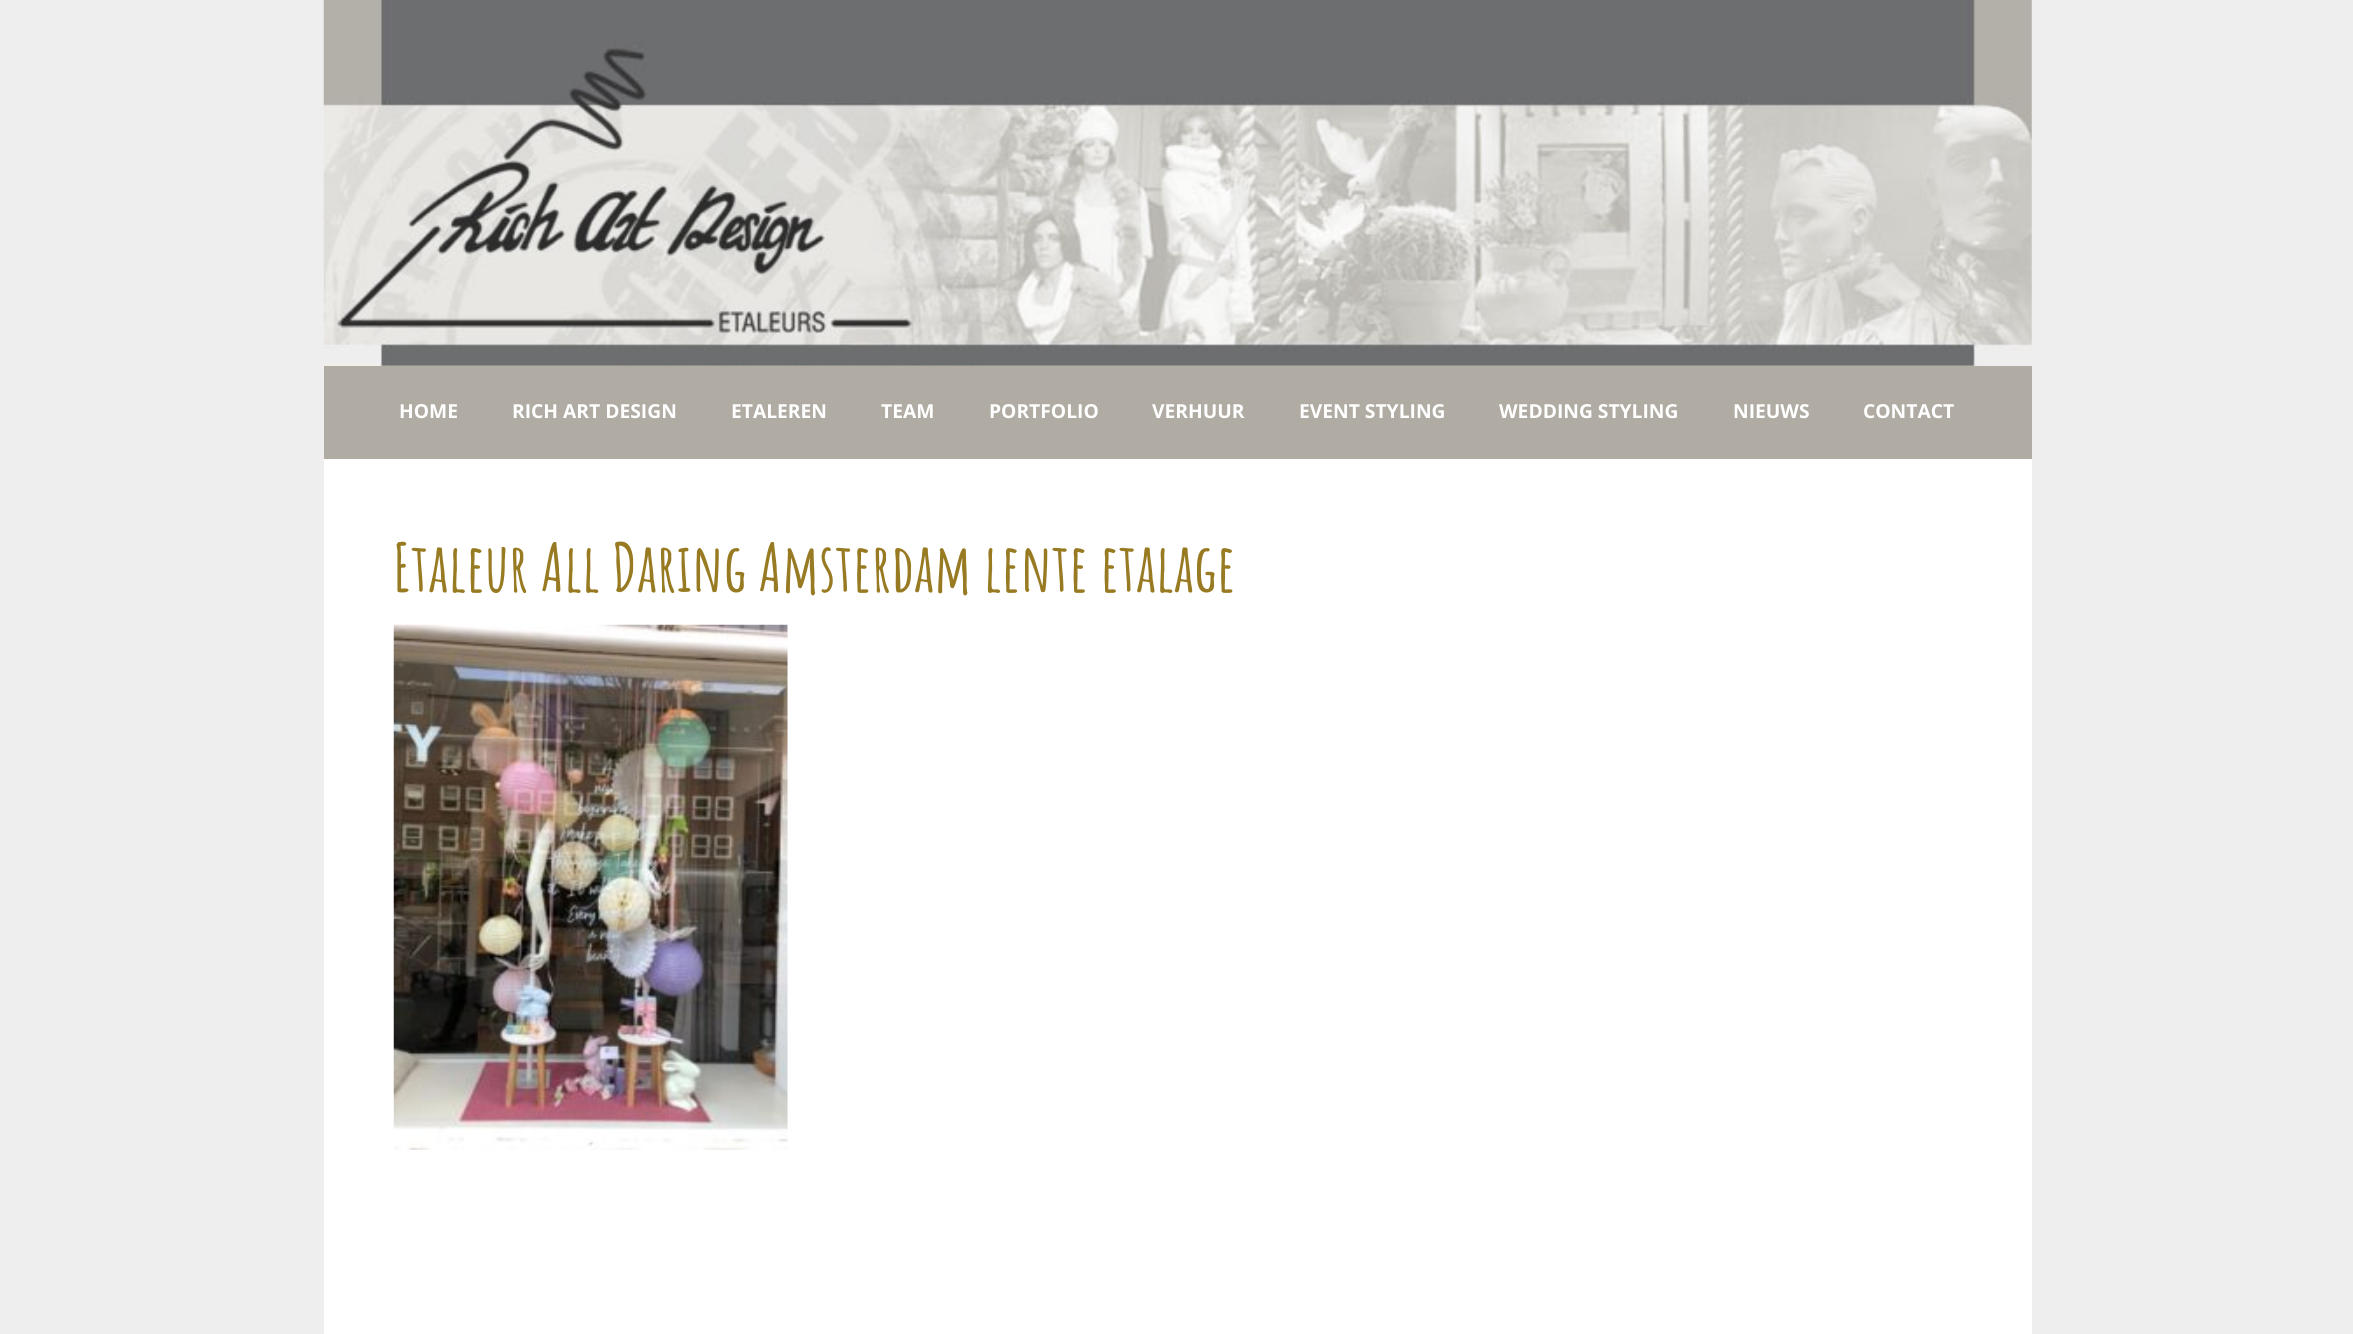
#include <cairo/cairo.h>
#include <math.h>
#include <stddef.h>

typedef struct { double x, y; const char *s; } line_t;
static cairo_t *cr;

static void rgb(unsigned color)
{
	cairo_set_source_rgb(cr, (color >> 16) / 255.0, (color >> 8 & 255) / 255.0, (color & 255) / 255.0);
}

static void image(const char *path, double x, double y, double w, double h)
{
	cairo_surface_t *image = cairo_image_surface_create_from_png(path);
	cairo_save(cr);
	cairo_set_source_surface(cr, image, x, y);
	cairo_rectangle(cr, x, y, w, h);
	cairo_fill(cr);
	cairo_restore(cr);
	cairo_surface_destroy(image);
}

int main(void) {
	cairo_surface_t *surface = cairo_image_surface_create(CAIRO_FORMAT_RGB24, 2353, 1334);
	cr = cairo_create(surface);
	cairo_font_options_t *options = cairo_font_options_create();
	cairo_font_options_set_hint_metrics(options, CAIRO_HINT_METRICS_OFF);
	cairo_font_options_set_hint_style(options, CAIRO_HINT_STYLE_NONE);
	cairo_set_font_options(cr, options);
	cairo_set_miter_limit(cr, 4);
	rgb(0xeeeeee);
	cairo_paint(cr);
	image("img/1.png", 323, 0, 1709, 366);
	rgb(0xb0aca3);
	cairo_rectangle(cr, 324, 366, 1708, 93);
	cairo_fill(cr);
	rgb(0xffffff);
	cairo_rectangle(cr, 324, 459, 1708, 875);
	cairo_fill(cr);
	image("img/2.png", 393, 624, 395, 526);
	cairo_select_font_face(cr, "Open Sans", CAIRO_FONT_SLANT_NORMAL, CAIRO_FONT_WEIGHT_BOLD);
	cairo_set_font_size(cr, 19.25);
	{
		static const line_t items[] = {
			{399, 418, "HOME"},
			{512, 418, "RICH ART DESIGN"},
			{731, 418, "ETALEREN"},
			{881, 418, "TEAM"},
			{989, 418, "PORTFOLIO"},
			{1152, 418, "VERHUUR"},
			{1299, 418, "EVENT STYLING"},
			{1499, 418, "WEDDING STYLING"},
			{1733, 418, "NIEUWS"},
			{1863, 418, "CONTACT"},
		};
		for (size_t i = 0; i < sizeof items / sizeof *items; i++) {
			cairo_move_to(cr, items[i].x, items[i].y);
			cairo_show_text(cr, items[i].s);
		}
	}
	cairo_select_font_face(cr, "Amatic SC", CAIRO_FONT_SLANT_NORMAL, CAIRO_FONT_WEIGHT_BOLD);
	cairo_set_font_size(cr, 66.5);
	rgb(0x977a21);
	cairo_move_to(cr, 393, 592);
	cairo_show_text(cr, "Etaleur All Daring Amsterdam lente etalage");
	cairo_surface_write_to_png(surface, "page.png");
	cairo_font_options_destroy(options);
	cairo_destroy(cr);
	cairo_surface_destroy(surface);
	return 0;
}
